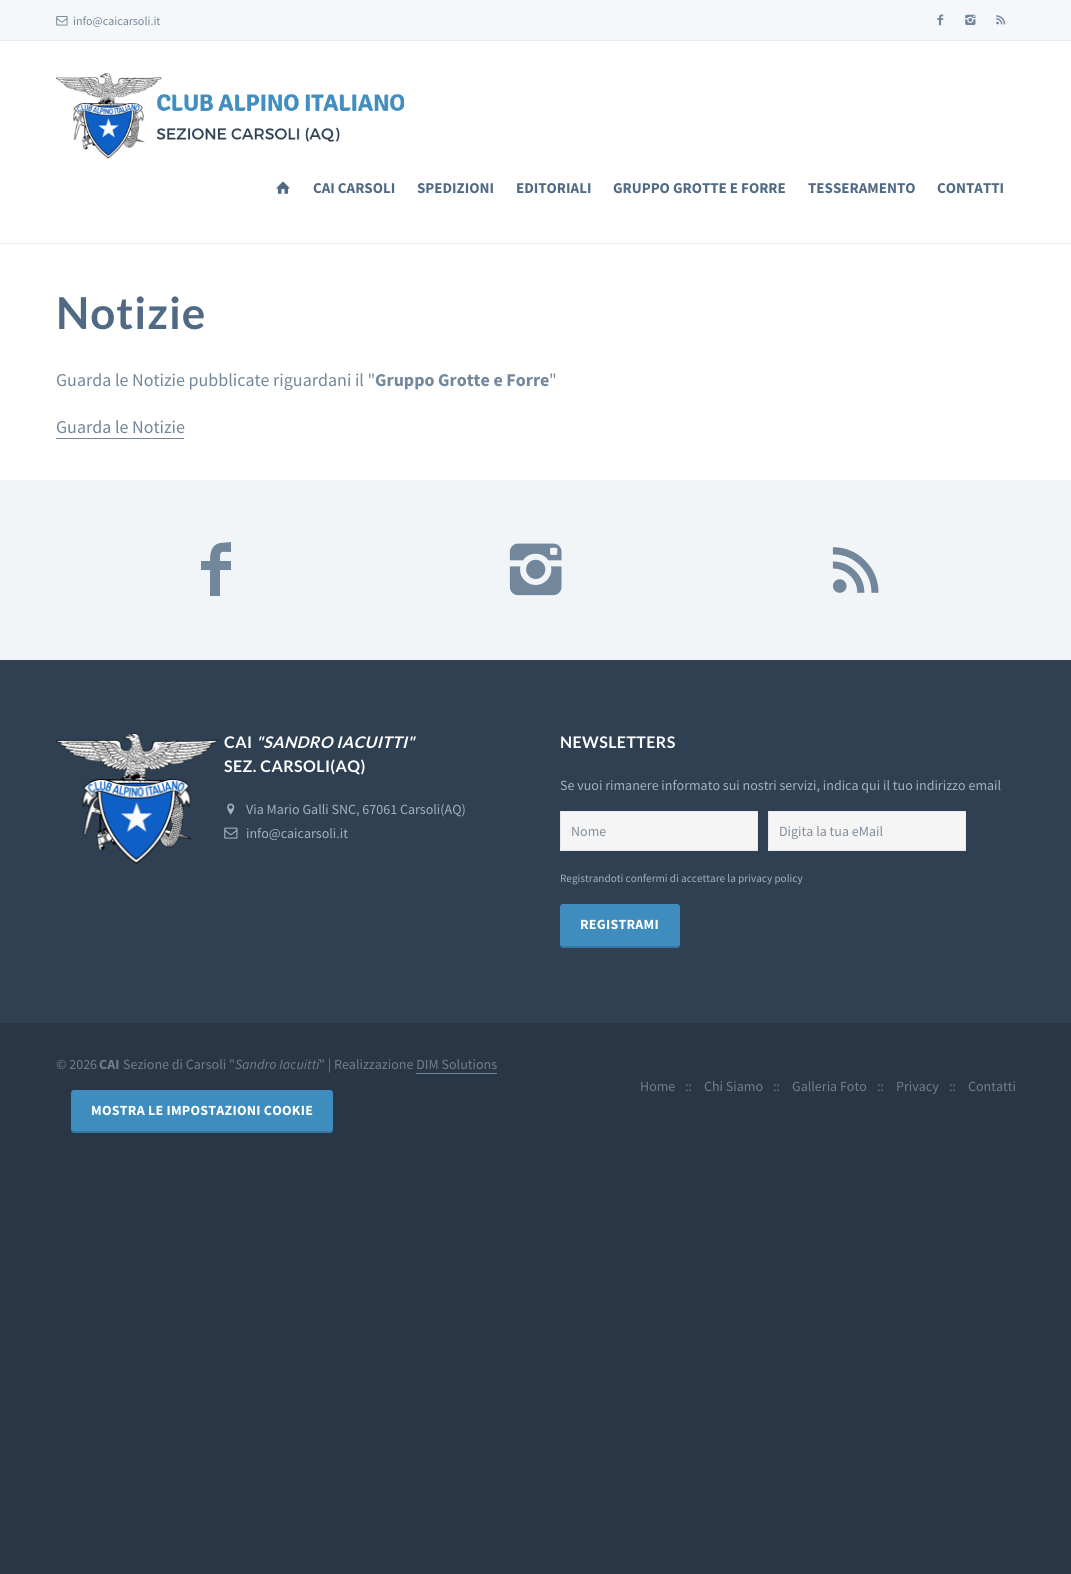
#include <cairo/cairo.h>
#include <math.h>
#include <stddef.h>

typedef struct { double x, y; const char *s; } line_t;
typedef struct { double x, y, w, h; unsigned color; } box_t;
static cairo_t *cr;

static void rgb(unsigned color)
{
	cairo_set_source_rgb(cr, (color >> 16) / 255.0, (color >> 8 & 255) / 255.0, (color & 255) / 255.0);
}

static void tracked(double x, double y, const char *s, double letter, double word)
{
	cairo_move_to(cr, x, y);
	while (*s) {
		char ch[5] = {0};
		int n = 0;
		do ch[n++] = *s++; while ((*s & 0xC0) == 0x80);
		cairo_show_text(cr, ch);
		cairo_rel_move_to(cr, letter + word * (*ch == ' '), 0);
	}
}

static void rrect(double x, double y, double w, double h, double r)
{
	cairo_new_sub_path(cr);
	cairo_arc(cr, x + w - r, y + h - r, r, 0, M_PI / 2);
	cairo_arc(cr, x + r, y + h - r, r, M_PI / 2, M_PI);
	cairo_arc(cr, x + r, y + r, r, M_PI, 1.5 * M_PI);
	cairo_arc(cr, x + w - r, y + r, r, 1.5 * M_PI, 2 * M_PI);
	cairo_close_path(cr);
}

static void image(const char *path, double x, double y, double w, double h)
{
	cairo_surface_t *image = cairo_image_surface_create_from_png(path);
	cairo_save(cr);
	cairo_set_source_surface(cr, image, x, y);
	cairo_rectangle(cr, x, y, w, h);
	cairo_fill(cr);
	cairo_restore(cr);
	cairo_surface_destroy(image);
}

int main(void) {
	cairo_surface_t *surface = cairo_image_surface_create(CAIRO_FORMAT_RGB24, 1071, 1574);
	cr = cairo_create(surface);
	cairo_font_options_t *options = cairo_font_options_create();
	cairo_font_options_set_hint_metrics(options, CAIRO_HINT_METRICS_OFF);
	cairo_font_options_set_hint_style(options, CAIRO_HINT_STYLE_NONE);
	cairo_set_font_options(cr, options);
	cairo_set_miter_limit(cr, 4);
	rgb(0x283645);
	cairo_paint(cr);
	{
		static const box_t items[] = {
			{0, 41, 1071, 202, 0xffffff},
			{0, 0, 1071, 40, 0xf5f7fa},
			{0, 40, 1071, 1, 0xe6e9ed},
		};
		for (size_t i = 0; i < sizeof items / sizeof *items; i++) {
			rgb(items[i].color);
			cairo_rectangle(cr, items[i].x, items[i].y, items[i].w, items[i].h);
			cairo_fill(cr);
		}
	}
	image("img/1.png", 56, 16, 12, 10);
	image("img/2.png", 937, 14, 7, 12);
	image("img/3.png", 965, 14, 11, 11);
	image("img/4.png", 996, 15, 10, 10);
	cairo_rectangle(cr, 0, 243, 1071, 1);
	cairo_fill(cr);
	image("img/5.png", 56, 73, 348, 86);
	image("img/6.png", 276, 181, 14, 13);
	{
		static const box_t items[] = {
			{0, 244, 1071, 236, 0xffffff},
			{56, 438, 128, 1, 0x73879c},
			{0, 480, 1071, 180, 0xf2f5f7},
		};
		for (size_t i = 0; i < sizeof items / sizeof *items; i++) {
			rgb(items[i].color);
			cairo_rectangle(cr, items[i].x, items[i].y, items[i].w, items[i].h);
			cairo_fill(cr);
		}
	}
	rgb(0x73879c);
	cairo_new_path(cr);
	cairo_move_to(cr, 231, 552);
	cairo_curve_to(cr, 220, 552, 220, 550, 220, 561);
	cairo_line_to(cr, 231, 561);
	cairo_line_to(cr, 231, 570);
	cairo_line_to(cr, 220, 570);
	cairo_line_to(cr, 220, 596);
	cairo_line_to(cr, 210, 596);
	cairo_line_to(cr, 210, 570);
	cairo_line_to(cr, 201, 570);
	cairo_line_to(cr, 201, 561);
	cairo_line_to(cr, 210, 561);
	cairo_curve_to(cr, 210, 553, 211, 545, 220, 543);
	cairo_line_to(cr, 231, 542);
	cairo_close_path(cr);
	cairo_fill(cr);
	image("img/7.png", 509, 543, 53, 53);
	image("img/8.png", 832, 547, 47, 46);
	rgb(0x2f4052);
	cairo_rectangle(cr, 0, 660, 1071, 363);
	cairo_fill(cr);
	image("img/9.png", 56, 733, 162, 131);
	image("img/10.png", 227, 803, 8, 12);
	image("img/11.png", 224, 827, 14, 12);
	rgb(0xf5f5f5);
	cairo_rectangle(cr, 560.5, 811.5, 197, 39);
	cairo_fill_preserve(cr);
	rgb(0xe6e9ed);
	cairo_set_line_width(cr, 1);
	cairo_stroke(cr);
	rgb(0xf5f5f5);
	cairo_rectangle(cr, 768.5, 811.5, 197, 39);
	cairo_fill_preserve(cr);
	rgb(0xe6e9ed);
	cairo_stroke(cr);
	rgb(0x3f8dbf);
	rrect(560, 904, 120, 44, 3);
	cairo_fill(cr);
	cairo_set_source_rgba(cr, 0, 0, 0, 0.15);
	cairo_new_path(cr);
	cairo_move_to(cr, 560, 943);
	cairo_line_to(cr, 560, 945);
	cairo_curve_to(cr, 560, 947, 561, 948, 563, 948);
	cairo_line_to(cr, 677, 948);
	cairo_curve_to(cr, 679, 948, 680, 947, 680, 945);
	cairo_line_to(cr, 680, 943);
	cairo_curve_to(cr, 680, 945, 679, 946, 677, 946);
	cairo_line_to(cr, 563, 946);
	cairo_curve_to(cr, 561, 946, 560, 945, 560, 943);
	cairo_close_path(cr);
	cairo_fill(cr);
	rgb(0x73879c);
	cairo_rectangle(cr, 416, 1073, 81, 1);
	cairo_fill(cr);
	rgb(0x3f8dbf);
	rrect(71, 1090, 262, 43, 3);
	cairo_fill(cr);
	cairo_set_source_rgba(cr, 0, 0, 0, 0.15);
	cairo_new_path(cr);
	cairo_move_to(cr, 71, 1128);
	cairo_line_to(cr, 71, 1130);
	cairo_curve_to(cr, 71, 1132, 72, 1133, 74, 1133);
	cairo_line_to(cr, 330, 1133);
	cairo_curve_to(cr, 332, 1133, 333, 1132, 333, 1130);
	cairo_line_to(cr, 333, 1128);
	cairo_curve_to(cr, 333, 1130, 332, 1131, 330, 1131);
	cairo_line_to(cr, 74, 1131);
	cairo_curve_to(cr, 72, 1131, 71, 1130, 71, 1128);
	cairo_close_path(cr);
	cairo_fill(cr);
	cairo_select_font_face(cr, "Source Sans Pro", CAIRO_FONT_SLANT_NORMAL, CAIRO_FONT_WEIGHT_NORMAL);
	cairo_set_font_size(cr, 12);
	rgb(0x73879c);
	cairo_move_to(cr, 73, 25);
	cairo_show_text(cr, "info@caicarsoli.it");
	cairo_select_font_face(cr, "Source Sans Pro", CAIRO_FONT_SLANT_NORMAL, CAIRO_FONT_WEIGHT_BOLD);
	cairo_set_font_size(cr, 15);
	rgb(0x506a85);
	{
		static const line_t items[] = {
			{313, 193, "CAI CARSOLI"},
			{417, 193, "SPEDIZIONI"},
			{516, 193, "EDITORIALI"},
			{613, 193, "GRUPPO GROTTE E FORRE"},
			{808, 193, "TESSERAMENTO"},
			{937, 193, "CONTATTI"},
		};
		for (size_t i = 0; i < sizeof items / sizeof *items; i++) {
			cairo_move_to(cr, items[i].x, items[i].y);
			cairo_show_text(cr, items[i].s);
		}
	}
	cairo_select_font_face(cr, "Lato", CAIRO_FONT_SLANT_NORMAL, CAIRO_FONT_WEIGHT_BOLD);
	cairo_set_font_size(cr, 44);
	tracked(56, 329, "Notizie", 1, 0);
	cairo_select_font_face(cr, "Source Sans Pro", CAIRO_FONT_SLANT_NORMAL, CAIRO_FONT_WEIGHT_NORMAL);
	cairo_set_font_size(cr, 18);
	rgb(0x73879c);
	cairo_move_to(cr, 56, 386);
	cairo_show_text(cr, "Guarda le Notizie pubblicate riguardani il \"");
	cairo_select_font_face(cr, "Source Sans Pro", CAIRO_FONT_SLANT_NORMAL, CAIRO_FONT_WEIGHT_BOLD);
	cairo_move_to(cr, 375, 386);
	cairo_show_text(cr, "Gruppo Grotte e Forre");
	cairo_select_font_face(cr, "Source Sans Pro", CAIRO_FONT_SLANT_NORMAL, CAIRO_FONT_WEIGHT_NORMAL);
	cairo_move_to(cr, 549, 386);
	cairo_show_text(cr, "\"");
	cairo_move_to(cr, 56, 433);
	cairo_show_text(cr, "Guarda le Notizie");
	cairo_select_font_face(cr, "Lato", CAIRO_FONT_SLANT_NORMAL, CAIRO_FONT_WEIGHT_BOLD);
	cairo_set_font_size(cr, 16);
	rgb(0xffffff);
	tracked(224, 748, "CAI", 0.4, 0);
	cairo_select_font_face(cr, "Lato", CAIRO_FONT_SLANT_ITALIC, CAIRO_FONT_WEIGHT_BOLD);
	tracked(256, 748, "\"SANDRO IACUITTI\"", 0.4, 0);
	cairo_select_font_face(cr, "Lato", CAIRO_FONT_SLANT_NORMAL, CAIRO_FONT_WEIGHT_BOLD);
	tracked(224, 772, "SEZ. CARSOLI(AQ)", 0.4, 0);
	cairo_select_font_face(cr, "Source Sans Pro", CAIRO_FONT_SLANT_NORMAL, CAIRO_FONT_WEIGHT_NORMAL);
	cairo_set_font_size(cr, 14);
	rgb(0xa3b1bf);
	cairo_move_to(cr, 246, 814);
	cairo_show_text(cr, "Via Mario Galli SNC, 67061 Carsoli(AQ)");
	cairo_move_to(cr, 246, 838);
	cairo_show_text(cr, "info@caicarsoli.it");
	cairo_select_font_face(cr, "Lato", CAIRO_FONT_SLANT_NORMAL, CAIRO_FONT_WEIGHT_BOLD);
	cairo_set_font_size(cr, 16);
	rgb(0xffffff);
	tracked(560, 748, "NEWSLETTERS", 0.4, 0);
	cairo_select_font_face(cr, "Source Sans Pro", CAIRO_FONT_SLANT_NORMAL, CAIRO_FONT_WEIGHT_NORMAL);
	cairo_set_font_size(cr, 14);
	rgb(0xa3b1bf);
	cairo_move_to(cr, 560, 790);
	cairo_show_text(cr, "Se vuoi rimanere informato sui nostri servizi, indica qui il tuo indirizzo email");
	rgb(0x828e99);
	cairo_move_to(cr, 571, 836);
	cairo_show_text(cr, "Nome");
	cairo_move_to(cr, 779, 836);
	cairo_show_text(cr, "Digita la tua eMail");
	cairo_set_font_size(cr, 11.2);
	rgb(0xa3b1bf);
	cairo_move_to(cr, 560, 882);
	cairo_show_text(cr, "Registrandoti confermi di accettare la privacy policy");
	cairo_select_font_face(cr, "Source Sans Pro", CAIRO_FONT_SLANT_NORMAL, CAIRO_FONT_WEIGHT_BOLD);
	cairo_set_font_size(cr, 14);
	rgb(0xffffff);
	tracked(580, 929, "REGISTRAMI", 0.25, 0);
	cairo_select_font_face(cr, "Source Sans Pro", CAIRO_FONT_SLANT_NORMAL, CAIRO_FONT_WEIGHT_NORMAL);
	rgb(0x707e8c);
	cairo_move_to(cr, 56, 1069);
	cairo_show_text(cr, "© 2026");
	cairo_select_font_face(cr, "Source Sans Pro", CAIRO_FONT_SLANT_NORMAL, CAIRO_FONT_WEIGHT_BOLD);
	cairo_move_to(cr, 99, 1069);
	cairo_show_text(cr, "CAI");
	cairo_select_font_face(cr, "Source Sans Pro", CAIRO_FONT_SLANT_NORMAL, CAIRO_FONT_WEIGHT_NORMAL);
	cairo_move_to(cr, 123, 1069);
	cairo_show_text(cr, "Sezione di Carsoli \"");
	cairo_select_font_face(cr, "Source Sans Pro", CAIRO_FONT_SLANT_ITALIC, CAIRO_FONT_WEIGHT_NORMAL);
	cairo_move_to(cr, 235, 1069);
	cairo_show_text(cr, "Sandro Iacuitti");
	cairo_select_font_face(cr, "Source Sans Pro", CAIRO_FONT_SLANT_NORMAL, CAIRO_FONT_WEIGHT_NORMAL);
	{
		static const line_t items[] = {
			{319, 1069, "\" | Realizzazione DIM Solutions"},
			{640, 1091, "Home"},
			{685, 1091, "::"},
			{704, 1091, "Chi Siamo"},
			{773, 1091, "::"},
			{792, 1091, "Galleria Foto"},
			{877, 1091, "::"},
			{896, 1091, "Privacy"},
			{949, 1091, "::"},
			{968, 1091, "Contatti"},
		};
		for (size_t i = 0; i < sizeof items / sizeof *items; i++) {
			cairo_move_to(cr, items[i].x, items[i].y);
			cairo_show_text(cr, items[i].s);
		}
	}
	cairo_select_font_face(cr, "Source Sans Pro", CAIRO_FONT_SLANT_NORMAL, CAIRO_FONT_WEIGHT_BOLD);
	rgb(0xffffff);
	tracked(91, 1115, "MOSTRA LE IMPOSTAZIONI COOKIE", 0.25, 0);
	cairo_surface_write_to_png(surface, "page.png");
	cairo_font_options_destroy(options);
	cairo_destroy(cr);
	cairo_surface_destroy(surface);
	return 0;
}
